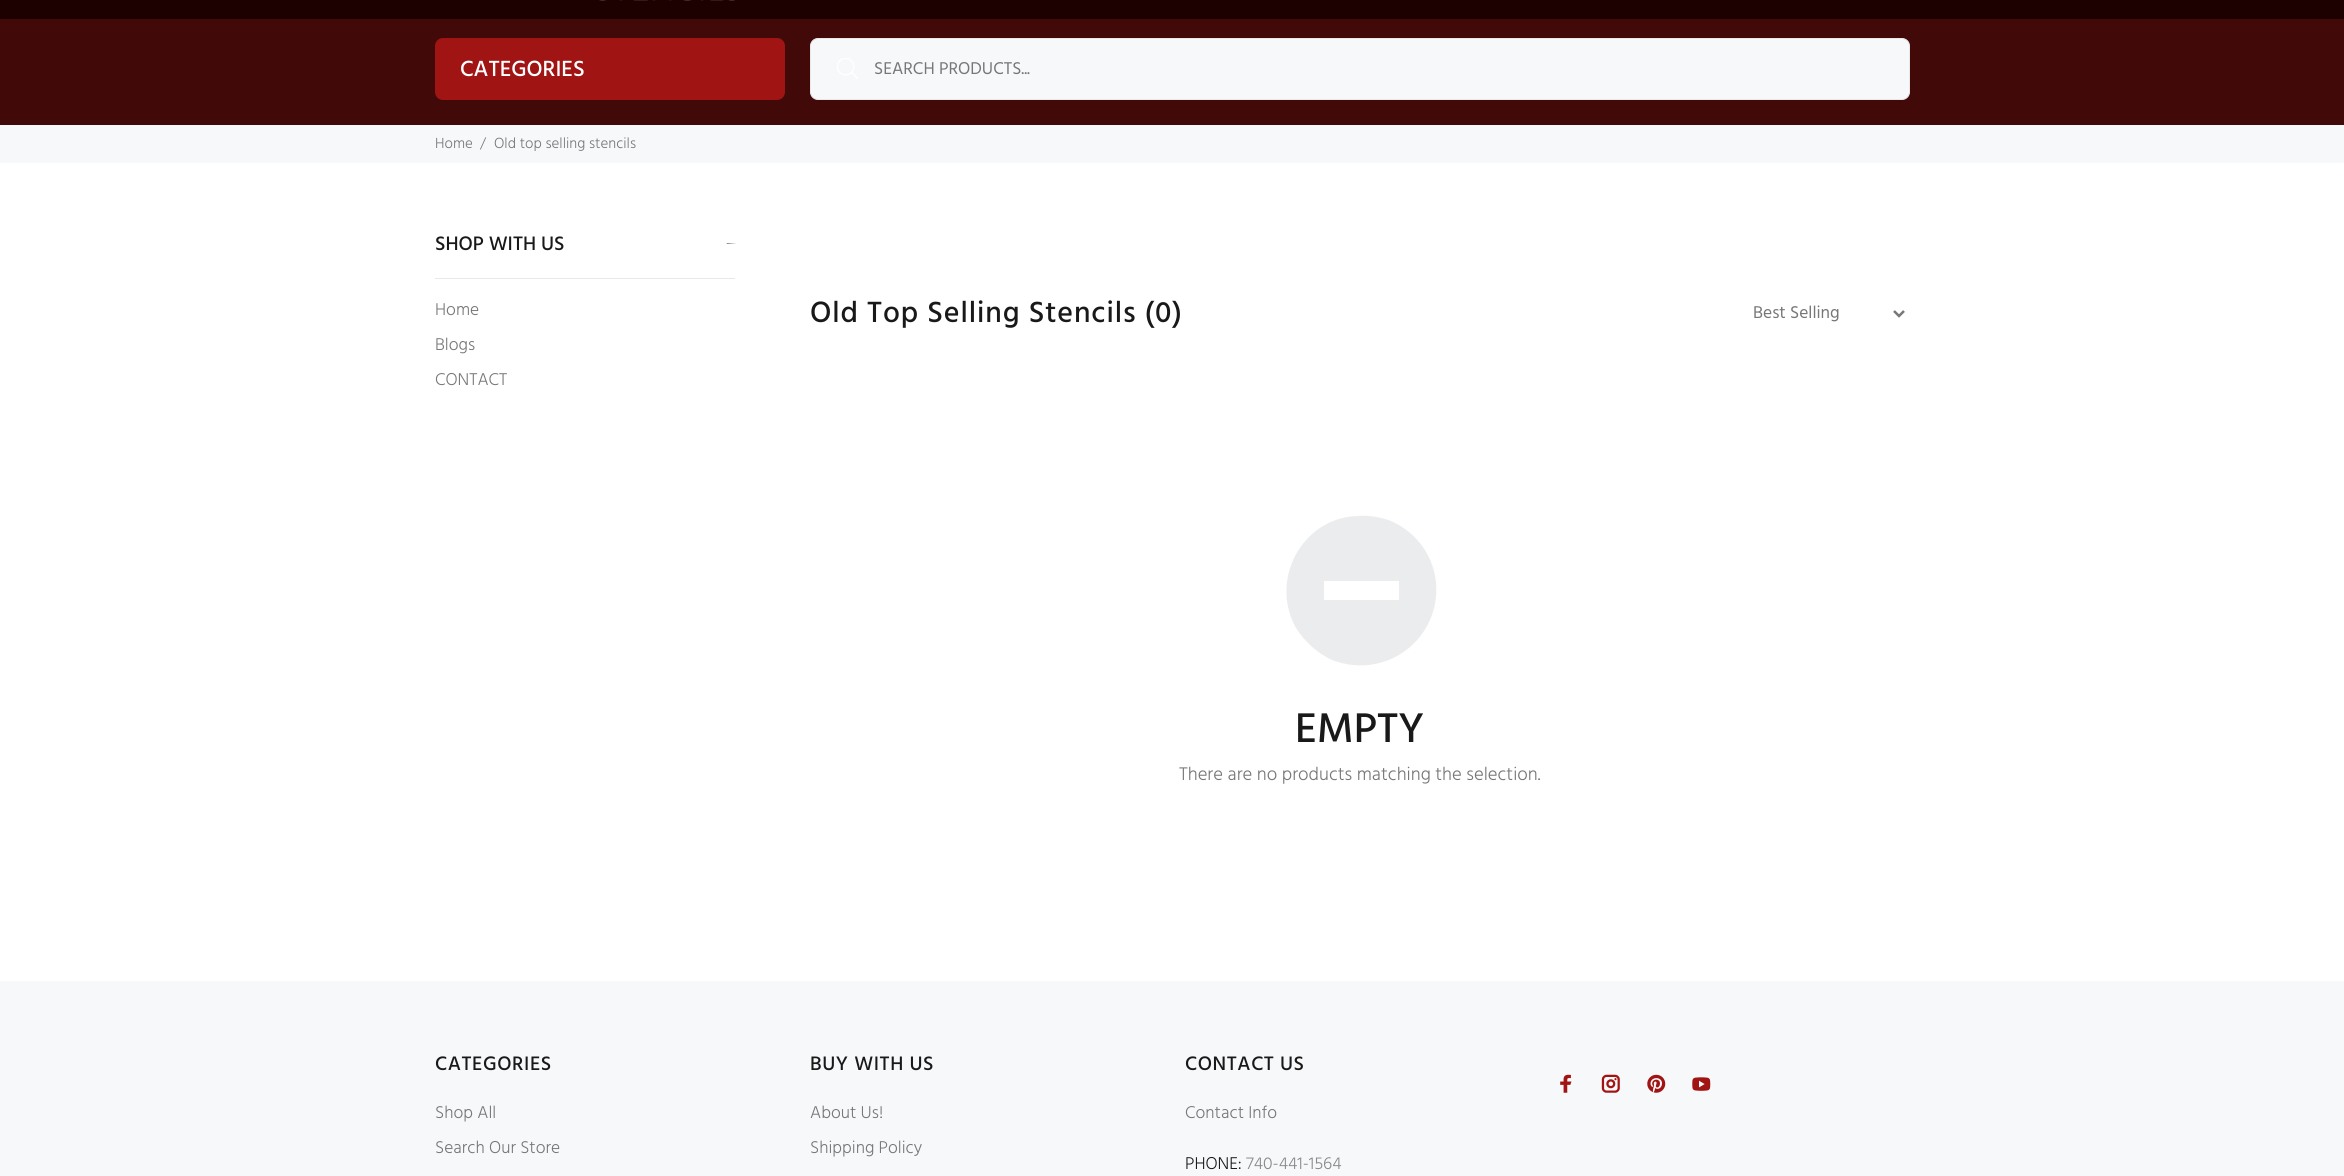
#include <cairo/cairo.h>
#include <math.h>
#include <stddef.h>

typedef struct { double x, y; const char *s; } line_t;
static cairo_t *cr;

static void rgb(unsigned color)
{
	cairo_set_source_rgb(cr, (color >> 16) / 255.0, (color >> 8 & 255) / 255.0, (color & 255) / 255.0);
}

static void tracked(double x, double y, const char *s, double letter, double word)
{
	cairo_move_to(cr, x, y);
	while (*s) {
		char ch[5] = {0};
		int n = 0;
		do ch[n++] = *s++; while ((*s & 0xC0) == 0x80);
		cairo_show_text(cr, ch);
		cairo_rel_move_to(cr, letter + word * (*ch == ' '), 0);
	}
}

static void rrect(double x, double y, double w, double h, double r)
{
	cairo_new_sub_path(cr);
	cairo_arc(cr, x + w - r, y + h - r, r, 0, M_PI / 2);
	cairo_arc(cr, x + r, y + h - r, r, M_PI / 2, M_PI);
	cairo_arc(cr, x + r, y + r, r, M_PI, 1.5 * M_PI);
	cairo_arc(cr, x + w - r, y + r, r, 1.5 * M_PI, 2 * M_PI);
	cairo_close_path(cr);
}

static void image(const char *path, double x, double y, double w, double h)
{
	cairo_surface_t *image = cairo_image_surface_create_from_png(path);
	cairo_save(cr);
	cairo_set_source_surface(cr, image, x, y);
	cairo_rectangle(cr, x, y, w, h);
	cairo_fill(cr);
	cairo_restore(cr);
	cairo_surface_destroy(image);
}

int main(void) {
	cairo_surface_t *surface = cairo_image_surface_create(CAIRO_FORMAT_RGB24, 2344, 1176);
	cr = cairo_create(surface);
	cairo_font_options_t *options = cairo_font_options_create();
	cairo_font_options_set_hint_metrics(options, CAIRO_HINT_METRICS_OFF);
	cairo_font_options_set_hint_style(options, CAIRO_HINT_STYLE_NONE);
	cairo_set_font_options(cr, options);
	cairo_set_miter_limit(cr, 4);
	rgb(0xffffff);
	cairo_paint(cr);
	rgb(0x420909);
	cairo_rectangle(cr, 0, 19, 2344, 106);
	cairo_fill(cr);
	rgb(0x1d0101);
	cairo_rectangle(cr, 0, 0, 2344, 19);
	cairo_fill(cr);
	image("img/1.png", 599, 0, 136, 1);
	rgb(0xa11414);
	rrect(435, 38, 350, 62, 8);
	cairo_fill(cr);
	rgb(0xf7f8fa);
	rrect(810.5, 38.5, 1099, 61, 7.5);
	cairo_fill_preserve(cr);
	rgb(0xe9e7e7);
	cairo_set_line_width(cr, 1);
	cairo_stroke(cr);
	image("img/2.png", 837, 58, 21, 21);
	rgb(0xf7f8fa);
	cairo_rectangle(cr, 0, 125, 2344, 38);
	cairo_fill(cr);
	rgb(0xe9e7e7);
	cairo_rectangle(cr, 435, 278, 300, 1);
	cairo_fill(cr);
	rgb(0x191919);
	cairo_new_path(cr);
	cairo_move_to(cr, 736, 243.5);
	cairo_line_to(cr, 726.5, 243.5);
	cairo_line_to(cr, 727, 243);
	cairo_close_path(cr);
	cairo_fill(cr);
	cairo_new_path(cr);
	cairo_move_to(cr, 1894, 311);
	cairo_line_to(cr, 1899, 316);
	cairo_line_to(cr, 1904, 311);
	rgb(0x777777);
	cairo_set_line_width(cr, 2.5);
	cairo_stroke(cr);
	rgb(0xebecee);
	cairo_new_path(cr);
	cairo_move_to(cr, 1391, 521);
	cairo_curve_to(cr, 1438, 542, 1451, 600, 1418, 639);
	cairo_curve_to(cr, 1407, 652, 1391, 661, 1375, 664);
	cairo_curve_to(cr, 1360, 667, 1345, 665, 1332, 660);
	cairo_curve_to(cr, 1317, 653, 1305, 642, 1296, 628);
	cairo_curve_to(cr, 1269, 580, 1302, 518, 1357, 516);
	cairo_curve_to(cr, 1369, 515, 1380, 517, 1391, 521);
	cairo_close_path(cr);
	cairo_move_to(cr, 1399, 581);
	cairo_line_to(cr, 1324, 581);
	cairo_line_to(cr, 1324, 600);
	cairo_line_to(cr, 1399, 600);
	cairo_close_path(cr);
	cairo_fill(cr);
	rgb(0xf7f8fa);
	cairo_rectangle(cr, 0, 981, 2344, 195);
	cairo_fill(cr);
	image("img/3.png", 1560, 1074, 12, 19);
	image("img/4.png", 1601, 1074, 19, 19);
	image("img/5.png", 1647, 1074, 19, 19);
	image("img/6.png", 1692, 1077, 19, 14);
	cairo_select_font_face(cr, "Hind Medium", CAIRO_FONT_SLANT_NORMAL, CAIRO_FONT_WEIGHT_NORMAL);
	cairo_set_font_size(cr, 22.5);
	rgb(0xffffff);
	cairo_move_to(cr, 460, 76);
	cairo_show_text(cr, "CATEGORIES");
	cairo_select_font_face(cr, "Hind", CAIRO_FONT_SLANT_NORMAL, CAIRO_FONT_WEIGHT_NORMAL);
	cairo_set_font_size(cr, 17.5);
	rgb(0x777777);
	cairo_move_to(cr, 874, 74);
	cairo_show_text(cr, "SEARCH PRODUCTS...");
	cairo_select_font_face(cr, "Hind Light", CAIRO_FONT_SLANT_NORMAL, CAIRO_FONT_WEIGHT_NORMAL);
	cairo_set_font_size(cr, 15);
	{
		static const line_t items[] = {
			{435, 148, "Home"},
			{480, 148, "/"},
			{494, 148, "Old top selling stencils"},
		};
		for (size_t i = 0; i < sizeof items / sizeof *items; i++) {
			cairo_move_to(cr, items[i].x, items[i].y);
			cairo_show_text(cr, items[i].s);
		}
	}
	cairo_select_font_face(cr, "Hind Medium", CAIRO_FONT_SLANT_NORMAL, CAIRO_FONT_WEIGHT_NORMAL);
	cairo_set_font_size(cr, 20);
	rgb(0x191919);
	cairo_move_to(cr, 435, 250);
	cairo_show_text(cr, "SHOP WITH US");
	cairo_select_font_face(cr, "Hind Light", CAIRO_FONT_SLANT_NORMAL, CAIRO_FONT_WEIGHT_NORMAL);
	cairo_set_font_size(cr, 17.5);
	rgb(0x777777);
	{
		static const line_t items[] = {
			{435, 315, "Home"},
			{435, 350, "Blogs"},
			{435, 385, "CONTACT"},
		};
		for (size_t i = 0; i < sizeof items / sizeof *items; i++) {
			cairo_move_to(cr, items[i].x, items[i].y);
			cairo_show_text(cr, items[i].s);
		}
	}
	cairo_select_font_face(cr, "Hind Medium", CAIRO_FONT_SLANT_NORMAL, CAIRO_FONT_WEIGHT_NORMAL);
	cairo_set_font_size(cr, 30);
	rgb(0x191919);
	tracked(810, 322, "Old Top Selling Stencils (0)", 0.9, 0);
	cairo_select_font_face(cr, "Hind", CAIRO_FONT_SLANT_NORMAL, CAIRO_FONT_WEIGHT_NORMAL);
	cairo_set_font_size(cr, 17.5);
	rgb(0x777777);
	cairo_move_to(cr, 1753, 318);
	cairo_show_text(cr, "Best Selling");
	cairo_select_font_face(cr, "Hind Medium", CAIRO_FONT_SLANT_NORMAL, CAIRO_FONT_WEIGHT_NORMAL);
	cairo_set_font_size(cr, 42.5);
	rgb(0x191919);
	cairo_move_to(cr, 1295, 742);
	cairo_show_text(cr, "EMPTY");
	cairo_select_font_face(cr, "Hind Light", CAIRO_FONT_SLANT_NORMAL, CAIRO_FONT_WEIGHT_NORMAL);
	cairo_set_font_size(cr, 18.75);
	rgb(0x777777);
	cairo_move_to(cr, 1179, 780);
	cairo_show_text(cr, "There are no products matching the selection.");
	cairo_select_font_face(cr, "Hind Medium", CAIRO_FONT_SLANT_NORMAL, CAIRO_FONT_WEIGHT_NORMAL);
	cairo_set_font_size(cr, 20);
	rgb(0x191919);
	tracked(435, 1070, "CATEGORIES", 0.6, 0);
	cairo_select_font_face(cr, "Hind Light", CAIRO_FONT_SLANT_NORMAL, CAIRO_FONT_WEIGHT_NORMAL);
	cairo_set_font_size(cr, 17.5);
	rgb(0x777777);
	cairo_move_to(cr, 435, 1118);
	cairo_show_text(cr, "Shop All");
	cairo_move_to(cr, 435, 1153);
	cairo_show_text(cr, "Search Our Store");
	cairo_select_font_face(cr, "Hind Medium", CAIRO_FONT_SLANT_NORMAL, CAIRO_FONT_WEIGHT_NORMAL);
	cairo_set_font_size(cr, 20);
	rgb(0x191919);
	tracked(810, 1070, "BUY WITH US", 0.6, 0);
	cairo_select_font_face(cr, "Hind Light", CAIRO_FONT_SLANT_NORMAL, CAIRO_FONT_WEIGHT_NORMAL);
	cairo_set_font_size(cr, 17.5);
	rgb(0x777777);
	cairo_move_to(cr, 810, 1118);
	cairo_show_text(cr, "About Us!");
	cairo_move_to(cr, 810, 1153);
	cairo_show_text(cr, "Shipping Policy");
	cairo_select_font_face(cr, "Hind Medium", CAIRO_FONT_SLANT_NORMAL, CAIRO_FONT_WEIGHT_NORMAL);
	cairo_set_font_size(cr, 20);
	rgb(0x191919);
	tracked(1185, 1070, "CONTACT US", 0.6, 0);
	cairo_select_font_face(cr, "Hind Light", CAIRO_FONT_SLANT_NORMAL, CAIRO_FONT_WEIGHT_NORMAL);
	cairo_set_font_size(cr, 17.5);
	rgb(0x777777);
	cairo_move_to(cr, 1185, 1118);
	cairo_show_text(cr, "Contact Info");
	rgb(0x191919);
	cairo_move_to(cr, 1185, 1169);
	cairo_show_text(cr, "PHONE:");
	rgb(0x888888);
	cairo_move_to(cr, 1246, 1169);
	cairo_show_text(cr, "740-441-1564");
	cairo_surface_write_to_png(surface, "page.png");
	cairo_font_options_destroy(options);
	cairo_destroy(cr);
	cairo_surface_destroy(surface);
	return 0;
}
